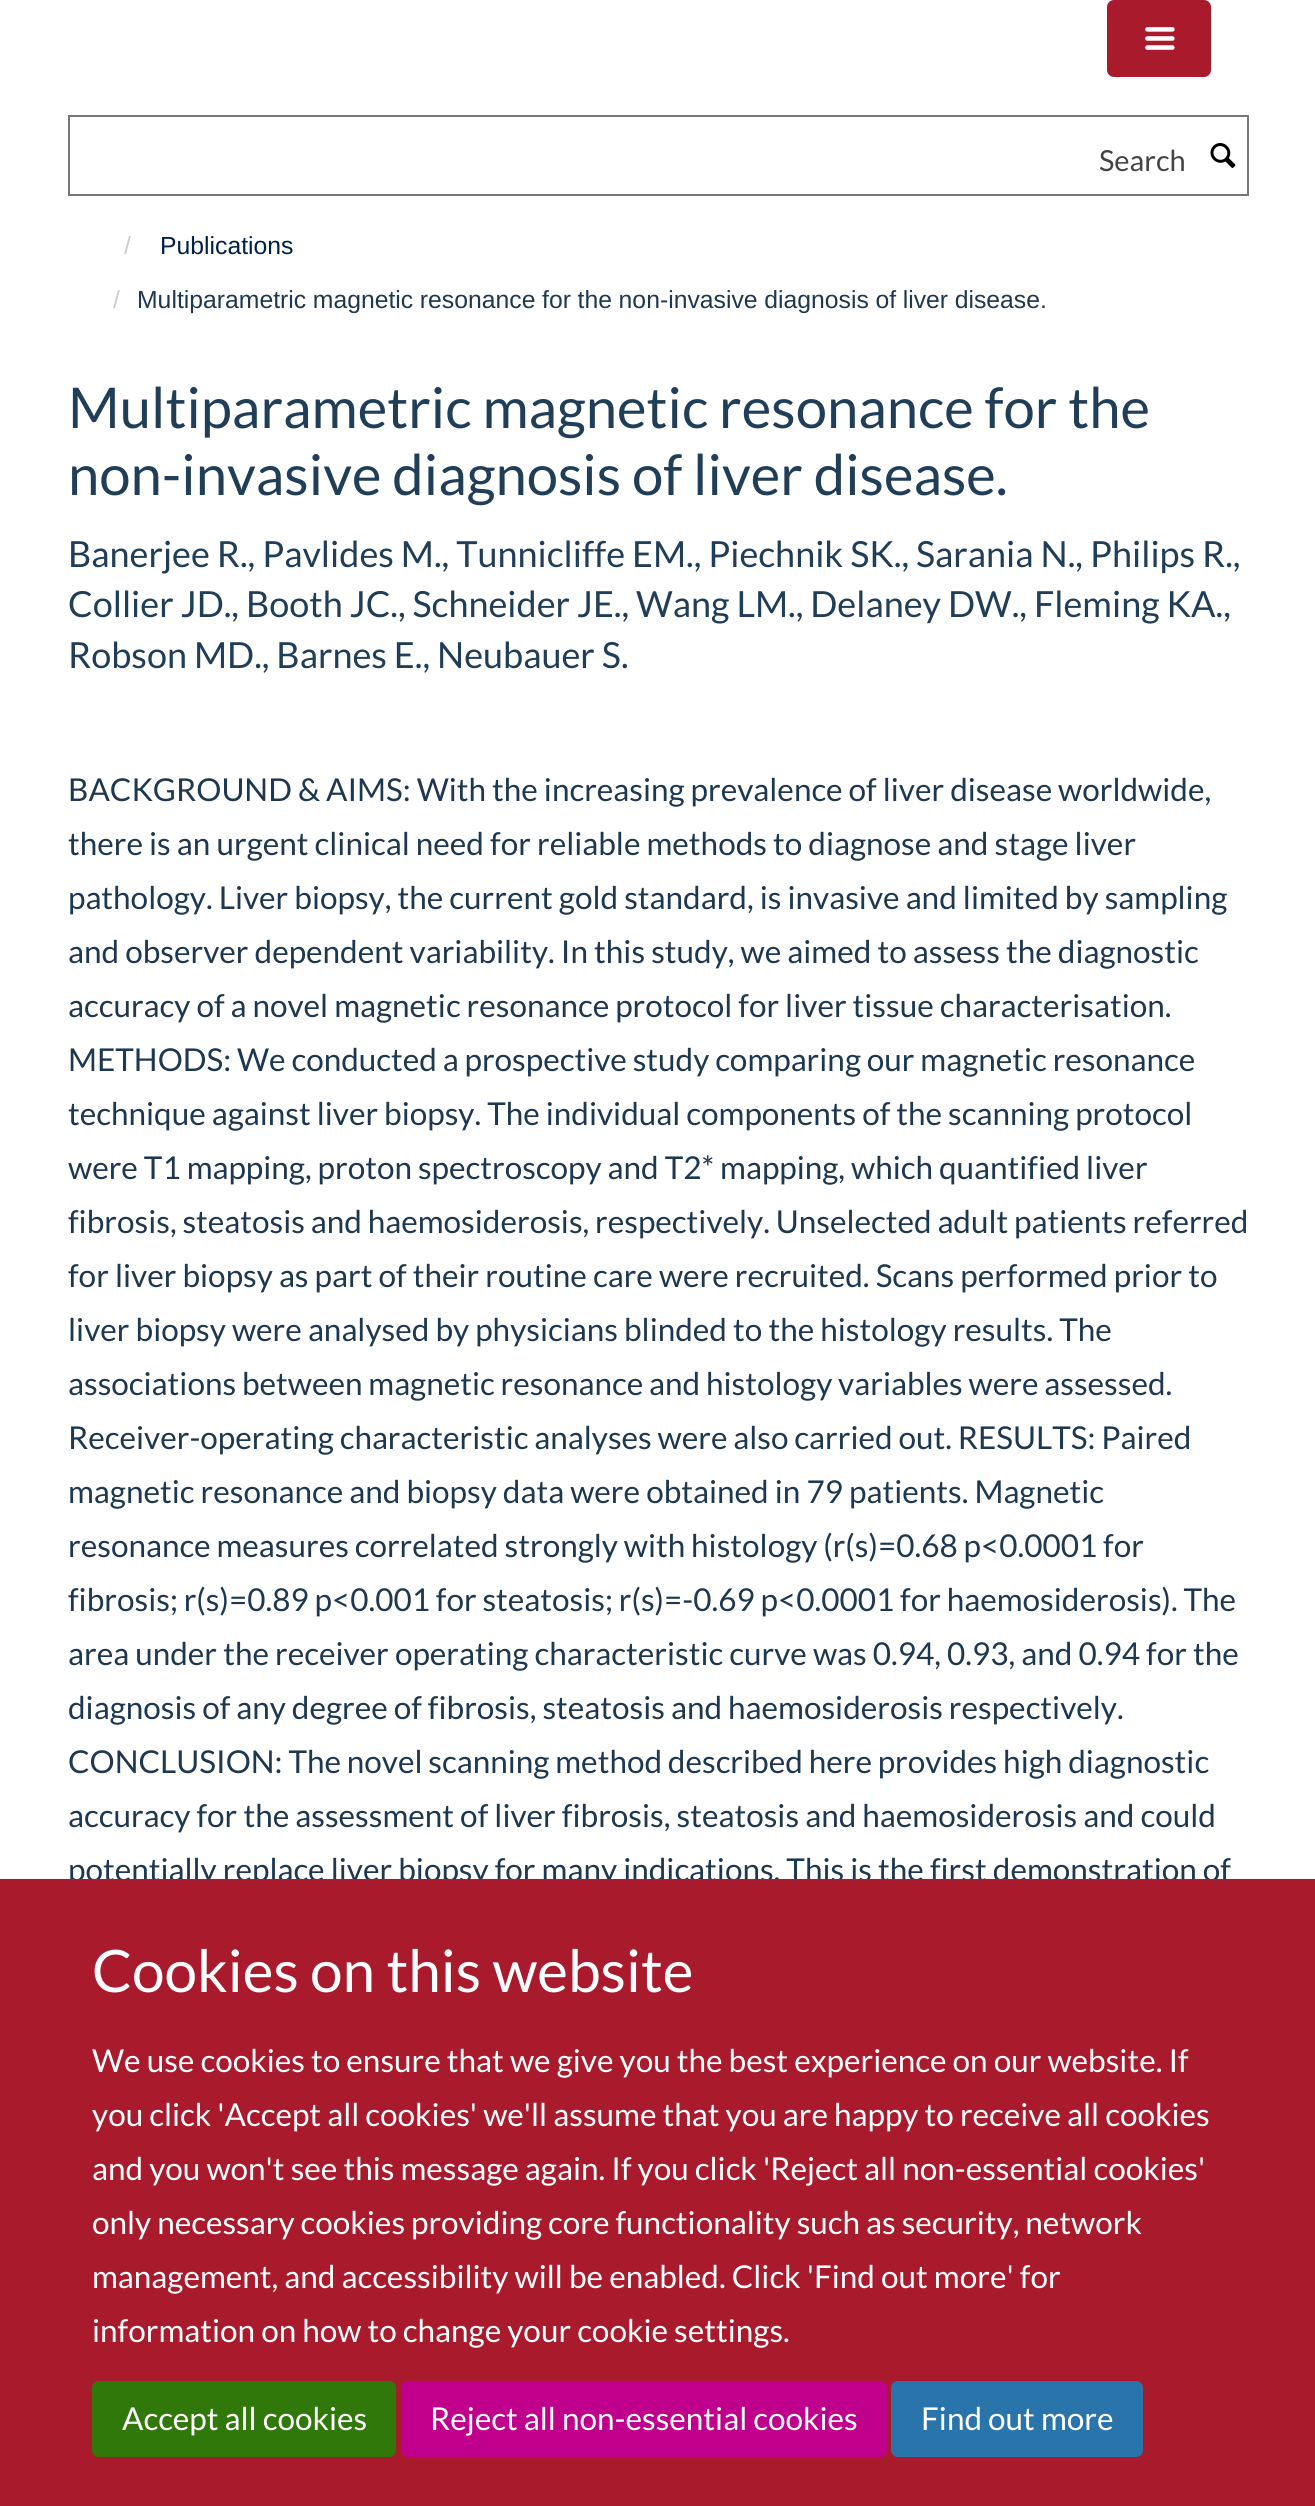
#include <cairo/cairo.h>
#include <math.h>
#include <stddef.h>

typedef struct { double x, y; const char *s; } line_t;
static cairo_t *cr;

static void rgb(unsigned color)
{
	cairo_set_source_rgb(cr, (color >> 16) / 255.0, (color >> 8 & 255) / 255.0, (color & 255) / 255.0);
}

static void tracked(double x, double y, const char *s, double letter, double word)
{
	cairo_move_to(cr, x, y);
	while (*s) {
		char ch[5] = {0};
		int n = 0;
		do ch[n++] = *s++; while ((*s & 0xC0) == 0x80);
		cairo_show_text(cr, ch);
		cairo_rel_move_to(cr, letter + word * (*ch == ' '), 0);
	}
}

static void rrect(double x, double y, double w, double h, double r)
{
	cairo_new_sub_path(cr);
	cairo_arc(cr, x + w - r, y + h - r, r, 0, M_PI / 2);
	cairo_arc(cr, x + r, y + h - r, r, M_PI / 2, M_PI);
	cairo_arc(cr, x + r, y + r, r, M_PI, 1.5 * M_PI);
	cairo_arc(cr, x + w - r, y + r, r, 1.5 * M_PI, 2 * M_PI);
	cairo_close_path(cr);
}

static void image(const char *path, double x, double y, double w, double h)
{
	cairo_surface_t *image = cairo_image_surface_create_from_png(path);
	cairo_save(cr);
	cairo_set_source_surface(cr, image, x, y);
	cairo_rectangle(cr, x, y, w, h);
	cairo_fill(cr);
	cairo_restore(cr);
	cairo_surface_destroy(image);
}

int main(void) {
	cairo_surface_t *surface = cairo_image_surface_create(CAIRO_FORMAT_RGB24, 1315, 2506);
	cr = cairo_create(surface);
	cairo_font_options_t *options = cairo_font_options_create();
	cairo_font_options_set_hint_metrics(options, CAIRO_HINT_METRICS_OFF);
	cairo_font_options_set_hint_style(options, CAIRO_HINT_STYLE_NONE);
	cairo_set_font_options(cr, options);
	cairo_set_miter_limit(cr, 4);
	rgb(0xffffff);
	cairo_paint(cr);
	rgb(0xaa1a2d);
	rrect(1108, 1, 102, 75, 6);
	cairo_fill_preserve(cr);
	cairo_stroke(cr);
	image("img/1.png", 1145, 27, 30, 23);
	cairo_rectangle(cr, 69, 116, 1179, 79);
	rgb(0x777777);
	cairo_stroke(cr);
	image("img/2.png", 1210, 143, 26, 25);
	cairo_select_font_face(cr, "Lato", CAIRO_FONT_SLANT_NORMAL, CAIRO_FONT_WEIGHT_NORMAL);
	cairo_set_font_size(cr, 29);
	rgb(0x444444);
	cairo_move_to(cr, 1099, 171);
	cairo_show_text(cr, "Search");
	cairo_select_font_face(cr, "Liberation Sans", CAIRO_FONT_SLANT_NORMAL, CAIRO_FONT_WEIGHT_NORMAL);
	cairo_set_font_size(cr, 24.75);
	rgb(0xcccccc);
	cairo_move_to(cr, 124, 254);
	cairo_show_text(cr, "/");
	rgb(0x002147);
	cairo_move_to(cr, 160, 254);
	cairo_show_text(cr, "Publications");
	rgb(0xcccccc);
	cairo_move_to(cr, 113, 308);
	cairo_show_text(cr, "/");
	rgb(0x1d3850);
	tracked(137, 308, "Multiparametric magnetic resonance for the non-invasive diagnosis of liver disease.", 0, -0.25);
	cairo_select_font_face(cr, "Lato", CAIRO_FONT_SLANT_NORMAL, CAIRO_FONT_WEIGHT_NORMAL);
	cairo_set_font_size(cr, 56.25);
	rgb(0x203e58);
	cairo_move_to(cr, 68, 428);
	cairo_show_text(cr, "Multiparametric magnetic resonance for the");
	cairo_move_to(cr, 68, 495);
	cairo_show_text(cr, "non-invasive diagnosis of liver disease.");
	cairo_set_font_size(cr, 36);
	{
		static const line_t items[] = {
			{68, 567, "Banerjee R., Pavlides M., Tunnicliffe EM., Piechnik SK., Sarania N., Philips R.,"},
			{68, 617, "Collier JD., Booth JC., Schneider JE., Wang LM., Delaney DW., Fleming KA.,"},
			{68, 668, "Robson MD., Barnes E., Neubauer S."},
		};
		for (size_t i = 0; i < sizeof items / sizeof *items; i++) {
			cairo_move_to(cr, items[i].x, items[i].y);
			cairo_show_text(cr, items[i].s);
		}
	}
	cairo_set_font_size(cr, 31.5);
	rgb(0x1d3850);
	tracked(68, 801, "BACKGROUND & AIMS: With the increasing prevalence of liver disease worldwide,", 0, -0.1);
	{
		static const line_t items[] = {
			{68, 855, "there is an urgent clinical need for reliable methods to diagnose and stage liver"},
			{68, 909, "pathology. Liver biopsy, the current gold standard, is invasive and limited by sampling"},
			{68, 963, "and observer dependent variability. In this study, we aimed to assess the diagnostic"},
		};
		for (size_t i = 0; i < sizeof items / sizeof *items; i++) {
			cairo_move_to(cr, items[i].x, items[i].y);
			cairo_show_text(cr, items[i].s);
		}
	}
	tracked(68, 1017, "accuracy of a novel magnetic resonance protocol for liver tissue characterisation.", 0, -0.1);
	tracked(68, 1071, "METHODS: We conducted a prospective study comparing our magnetic resonance", 0, -0.25);
	tracked(68, 1125, "technique against liver biopsy. The individual components of the scanning protocol", 0, -0.1);
	tracked(68, 1179, "were T1 mapping, proton spectroscopy and T2* mapping, which quantified liver", 0, -0.1);
	tracked(68, 1233, "fibrosis, steatosis and haemosiderosis, respectively. Unselected adult patients referred", 0, -0.25);
	cairo_move_to(cr, 68, 1287);
	cairo_show_text(cr, "for liver biopsy as part of their routine care were recruited. Scans performed prior to");
	cairo_move_to(cr, 68, 1341);
	cairo_show_text(cr, "liver biopsy were analysed by physicians blinded to the histology results. The");
	tracked(68, 1395, "associations between magnetic resonance and histology variables were assessed.", 0, -0.25);
	tracked(68, 1449, "Receiver-operating characteristic analyses were also carried out. RESULTS: Paired", 0, -0.25);
	cairo_move_to(cr, 68, 1503);
	cairo_show_text(cr, "magnetic resonance and biopsy data were obtained in 79 patients. Magnetic");
	tracked(68, 1557, "resonance measures correlated strongly with histology (r(s)=0.68 p<0.0001 for", 0, -0.25);
	tracked(68, 1611, "fibrosis; r(s)=0.89 p<0.001 for steatosis; r(s)=-0.69 p<0.0001 for haemosiderosis). The", 0, -0.25);
	cairo_move_to(cr, 68, 1665);
	cairo_show_text(cr, "area under the receiver operating characteristic curve was 0.94, 0.93, and 0.94 for the");
	tracked(68, 1719, "diagnosis of any degree of fibrosis, steatosis and haemosiderosis respectively.", 0, -0.1);
	tracked(68, 1773, "CONCLUSION: The novel scanning method described here provides high diagnostic", 0, -0.25);
	cairo_move_to(cr, 68, 1827);
	cairo_show_text(cr, "accuracy for the assessment of liver fibrosis, steatosis and haemosiderosis and could");
	cairo_move_to(cr, 68, 1881);
	cairo_show_text(cr, "potentially replace liver biopsy for many indications. This is the first demonstration of");
	rgb(0xaa1a2d);
	cairo_rectangle(cr, 0, 1879, 1315, 627);
	cairo_fill(cr);
	cairo_set_font_size(cr, 58.5);
	rgb(0xffffff);
	cairo_move_to(cr, 92, 1992);
	cairo_show_text(cr, "Cookies on this website");
	cairo_set_font_size(cr, 31.5);
	{
		static const line_t items[] = {
			{92, 2072, "We use cookies to ensure that we give you the best experience on our website. If"},
			{92, 2126, "you click 'Accept all cookies' we'll assume that you are happy to receive all cookies"},
			{92, 2180, "and you won't see this message again. If you click 'Reject all non-essential cookies'"},
		};
		for (size_t i = 0; i < sizeof items / sizeof *items; i++) {
			cairo_move_to(cr, items[i].x, items[i].y);
			cairo_show_text(cr, items[i].s);
		}
	}
	tracked(92, 2234, "only necessary cookies providing core functionality such as security, network", 0, -0.1);
	cairo_move_to(cr, 92, 2288);
	cairo_show_text(cr, "management, and accessibility will be enabled. Click 'Find out more' for");
	cairo_move_to(cr, 92, 2342);
	cairo_show_text(cr, "information on how to change your cookie settings.");
	rgb(0x31780a);
	rrect(93, 2382, 302, 74, 6);
	cairo_fill_preserve(cr);
	cairo_stroke(cr);
	rgb(0xffffff);
	cairo_move_to(cr, 122, 2430);
	cairo_show_text(cr, "Accept all cookies");
	rgb(0xc0008d);
	rrect(402, 2382, 484, 74, 6);
	cairo_fill_preserve(cr);
	cairo_stroke(cr);
	rgb(0xffffff);
	cairo_move_to(cr, 430, 2430);
	cairo_show_text(cr, "Reject all non-essential cookies");
	rgb(0x2a74ac);
	rrect(892, 2382, 250, 74, 6);
	cairo_fill_preserve(cr);
	cairo_stroke(cr);
	rgb(0xffffff);
	cairo_move_to(cr, 921, 2430);
	cairo_show_text(cr, "Find out more");
	cairo_surface_write_to_png(surface, "page.png");
	cairo_font_options_destroy(options);
	cairo_destroy(cr);
	cairo_surface_destroy(surface);
	return 0;
}
